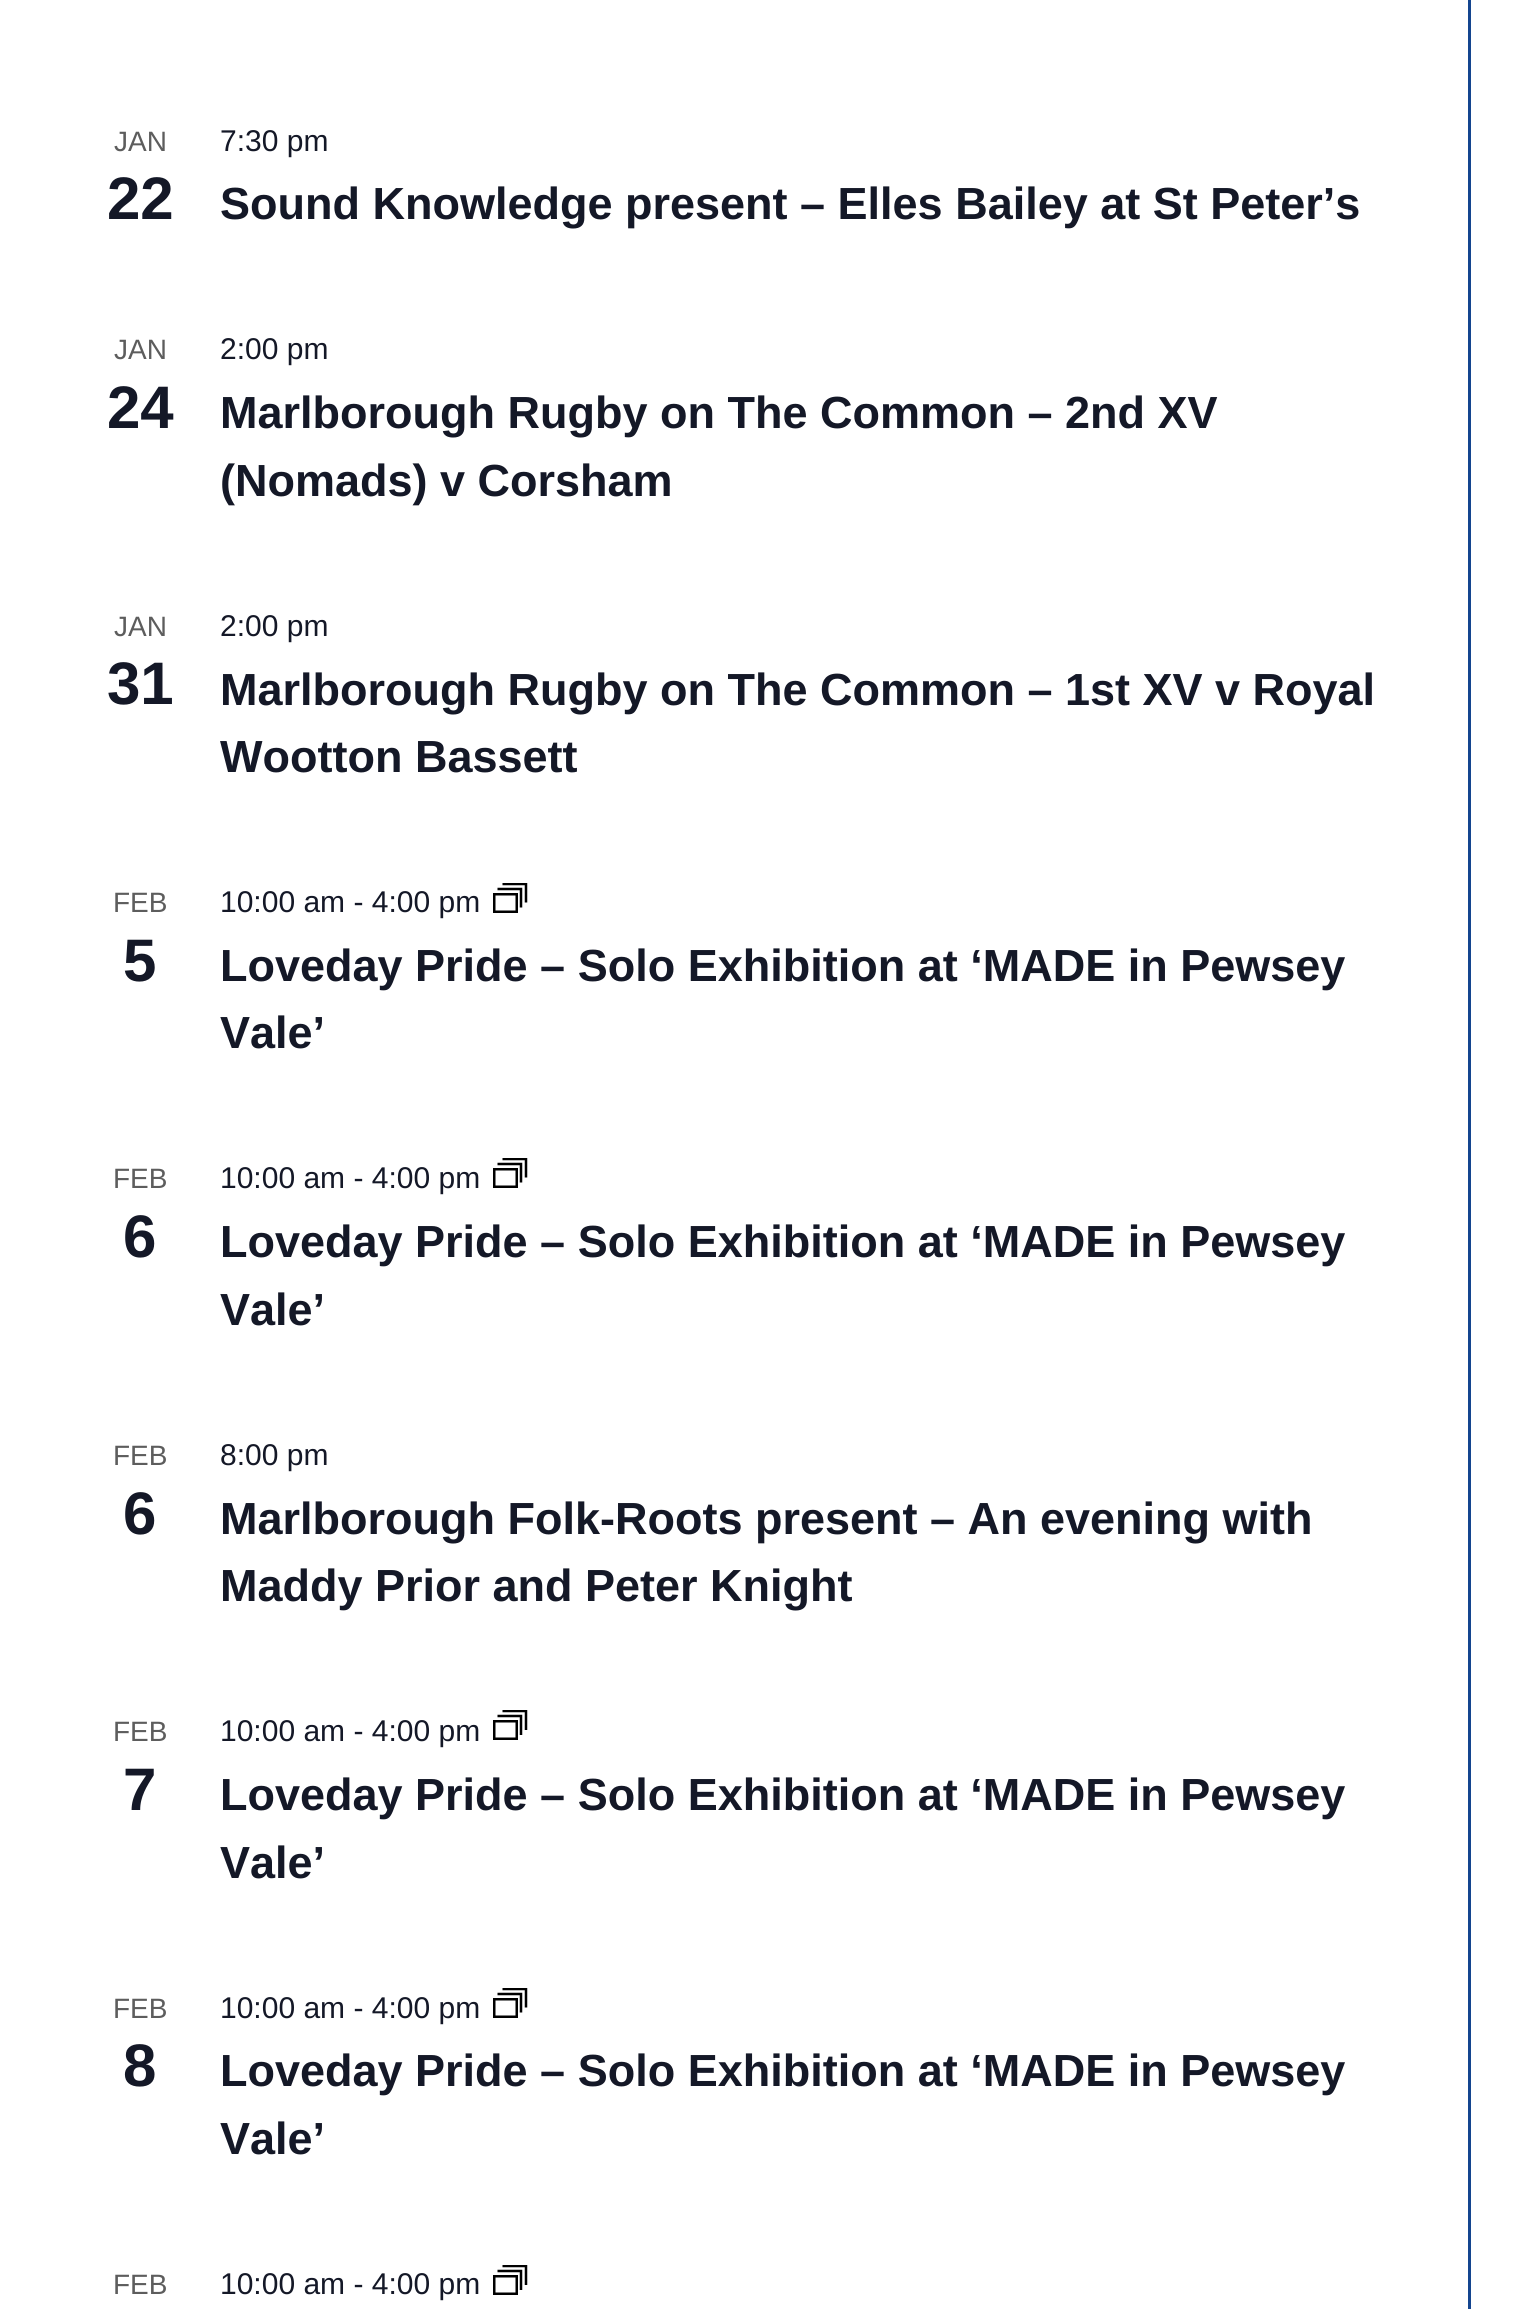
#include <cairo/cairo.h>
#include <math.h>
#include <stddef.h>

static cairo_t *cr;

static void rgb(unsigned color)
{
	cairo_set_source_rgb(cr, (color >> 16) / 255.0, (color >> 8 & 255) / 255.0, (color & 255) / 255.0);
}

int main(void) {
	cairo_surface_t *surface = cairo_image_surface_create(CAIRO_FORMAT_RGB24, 1530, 2309);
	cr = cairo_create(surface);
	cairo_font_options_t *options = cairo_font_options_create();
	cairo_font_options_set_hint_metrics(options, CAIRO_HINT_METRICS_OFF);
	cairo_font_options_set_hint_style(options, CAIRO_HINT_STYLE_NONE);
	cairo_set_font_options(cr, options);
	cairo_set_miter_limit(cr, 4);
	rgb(0xffffff);
	cairo_paint(cr);
	rgb(0x14458f);
	cairo_rectangle(cr, 1468, 0, 3, 2309);
	cairo_fill(cr);
	cairo_rectangle(cr, 494.25, 894.25, 22.5, 17.5);
	rgb(0x000000);
	cairo_set_line_width(cr, 2.5);
	cairo_stroke(cr);
	cairo_new_path(cr);
	cairo_move_to(cr, 497.5, 889);
	cairo_line_to(cr, 521, 889);
	cairo_line_to(cr, 521, 907.5);
	cairo_stroke(cr);
	cairo_save(cr);
	cairo_rectangle(cr, 493, 883, 35, 30);
	cairo_clip(cr);
	cairo_new_path(cr);
	cairo_move_to(cr, 502.5, 884);
	cairo_line_to(cr, 526, 884);
	cairo_line_to(cr, 526, 902.5);
	cairo_stroke(cr);
	cairo_restore(cr);
	cairo_rectangle(cr, 494.25, 1169.25, 22.5, 17.5);
	cairo_stroke(cr);
	cairo_new_path(cr);
	cairo_move_to(cr, 497.5, 1164);
	cairo_line_to(cr, 521, 1164);
	cairo_line_to(cr, 521, 1182.5);
	cairo_stroke(cr);
	cairo_save(cr);
	cairo_rectangle(cr, 493, 1158, 35, 30);
	cairo_clip(cr);
	cairo_new_path(cr);
	cairo_move_to(cr, 502.5, 1159);
	cairo_line_to(cr, 526, 1159);
	cairo_line_to(cr, 526, 1177.5);
	cairo_stroke(cr);
	cairo_restore(cr);
	cairo_rectangle(cr, 494.25, 1721.25, 22.5, 17.5);
	cairo_stroke(cr);
	cairo_new_path(cr);
	cairo_move_to(cr, 497.5, 1716);
	cairo_line_to(cr, 521, 1716);
	cairo_line_to(cr, 521, 1735);
	cairo_stroke(cr);
	cairo_save(cr);
	cairo_rectangle(cr, 493, 1710, 35, 30);
	cairo_clip(cr);
	cairo_new_path(cr);
	cairo_move_to(cr, 502.5, 1711);
	cairo_line_to(cr, 526, 1711);
	cairo_line_to(cr, 526, 1730);
	cairo_stroke(cr);
	cairo_restore(cr);
	cairo_rectangle(cr, 494.25, 1999.25, 22.5, 17.5);
	cairo_stroke(cr);
	cairo_new_path(cr);
	cairo_move_to(cr, 497.5, 1994);
	cairo_line_to(cr, 521, 1994);
	cairo_line_to(cr, 521, 2012.5);
	cairo_stroke(cr);
	cairo_save(cr);
	cairo_rectangle(cr, 493, 1988, 35, 30);
	cairo_clip(cr);
	cairo_new_path(cr);
	cairo_move_to(cr, 502.5, 1989);
	cairo_line_to(cr, 526, 1989);
	cairo_line_to(cr, 526, 2007.5);
	cairo_stroke(cr);
	cairo_restore(cr);
	cairo_rectangle(cr, 494.25, 2276.25, 22.5, 17.5);
	cairo_stroke(cr);
	cairo_new_path(cr);
	cairo_move_to(cr, 497.5, 2271);
	cairo_line_to(cr, 521, 2271);
	cairo_line_to(cr, 521, 2290);
	cairo_stroke(cr);
	cairo_save(cr);
	cairo_rectangle(cr, 493, 2265, 35, 30);
	cairo_clip(cr);
	cairo_new_path(cr);
	cairo_move_to(cr, 502.5, 2266);
	cairo_line_to(cr, 526, 2266);
	cairo_line_to(cr, 526, 2285);
	cairo_stroke(cr);
	cairo_restore(cr);
	cairo_select_font_face(cr, "Liberation Sans", CAIRO_FONT_SLANT_NORMAL, CAIRO_FONT_WEIGHT_NORMAL);
	cairo_set_font_size(cr, 28);
	rgb(0x5d5d5d);
	cairo_move_to(cr, 114, 151);
	cairo_show_text(cr, "JAN");
	cairo_select_font_face(cr, "Liberation Sans", CAIRO_FONT_SLANT_NORMAL, CAIRO_FONT_WEIGHT_BOLD);
	cairo_set_font_size(cr, 60);
	rgb(0x141827);
	cairo_move_to(cr, 107, 219);
	cairo_show_text(cr, "22");
	cairo_select_font_face(cr, "Liberation Sans", CAIRO_FONT_SLANT_NORMAL, CAIRO_FONT_WEIGHT_NORMAL);
	cairo_set_font_size(cr, 30);
	cairo_move_to(cr, 220, 151);
	cairo_show_text(cr, "7:30 pm");
	cairo_select_font_face(cr, "Liberation Sans", CAIRO_FONT_SLANT_NORMAL, CAIRO_FONT_WEIGHT_BOLD);
	cairo_set_font_size(cr, 45);
	cairo_move_to(cr, 220, 219);
	cairo_show_text(cr, "Sound Knowledge present – Elles Bailey at St Peter’s");
	cairo_select_font_face(cr, "Liberation Sans", CAIRO_FONT_SLANT_NORMAL, CAIRO_FONT_WEIGHT_NORMAL);
	cairo_set_font_size(cr, 28);
	rgb(0x5d5d5d);
	cairo_move_to(cr, 114, 359);
	cairo_show_text(cr, "JAN");
	cairo_select_font_face(cr, "Liberation Sans", CAIRO_FONT_SLANT_NORMAL, CAIRO_FONT_WEIGHT_BOLD);
	cairo_set_font_size(cr, 60);
	rgb(0x141827);
	cairo_move_to(cr, 107, 428);
	cairo_show_text(cr, "24");
	cairo_select_font_face(cr, "Liberation Sans", CAIRO_FONT_SLANT_NORMAL, CAIRO_FONT_WEIGHT_NORMAL);
	cairo_set_font_size(cr, 30);
	cairo_move_to(cr, 220, 359);
	cairo_show_text(cr, "2:00 pm");
	cairo_select_font_face(cr, "Liberation Sans", CAIRO_FONT_SLANT_NORMAL, CAIRO_FONT_WEIGHT_BOLD);
	cairo_set_font_size(cr, 45);
	cairo_move_to(cr, 220, 428);
	cairo_show_text(cr, "Marlborough Rugby on The Common – 2nd XV");
	cairo_move_to(cr, 220, 496);
	cairo_show_text(cr, "(Nomads) v Corsham");
	cairo_select_font_face(cr, "Liberation Sans", CAIRO_FONT_SLANT_NORMAL, CAIRO_FONT_WEIGHT_NORMAL);
	cairo_set_font_size(cr, 28);
	rgb(0x5d5d5d);
	cairo_move_to(cr, 114, 636);
	cairo_show_text(cr, "JAN");
	cairo_select_font_face(cr, "Liberation Sans", CAIRO_FONT_SLANT_NORMAL, CAIRO_FONT_WEIGHT_BOLD);
	cairo_set_font_size(cr, 60);
	rgb(0x141827);
	cairo_move_to(cr, 107, 704);
	cairo_show_text(cr, "31");
	cairo_select_font_face(cr, "Liberation Sans", CAIRO_FONT_SLANT_NORMAL, CAIRO_FONT_WEIGHT_NORMAL);
	cairo_set_font_size(cr, 30);
	cairo_move_to(cr, 220, 636);
	cairo_show_text(cr, "2:00 pm");
	cairo_select_font_face(cr, "Liberation Sans", CAIRO_FONT_SLANT_NORMAL, CAIRO_FONT_WEIGHT_BOLD);
	cairo_set_font_size(cr, 45);
	cairo_move_to(cr, 220, 705);
	cairo_show_text(cr, "Marlborough Rugby on The Common – 1st XV v Royal");
	cairo_move_to(cr, 220, 772);
	cairo_show_text(cr, "Wootton Bassett");
	cairo_select_font_face(cr, "Liberation Sans", CAIRO_FONT_SLANT_NORMAL, CAIRO_FONT_WEIGHT_NORMAL);
	cairo_set_font_size(cr, 28);
	rgb(0x5d5d5d);
	cairo_move_to(cr, 113, 912);
	cairo_show_text(cr, "FEB");
	cairo_select_font_face(cr, "Liberation Sans", CAIRO_FONT_SLANT_NORMAL, CAIRO_FONT_WEIGHT_BOLD);
	cairo_set_font_size(cr, 60);
	rgb(0x141827);
	cairo_move_to(cr, 123, 981);
	cairo_show_text(cr, "5");
	cairo_select_font_face(cr, "Liberation Sans", CAIRO_FONT_SLANT_NORMAL, CAIRO_FONT_WEIGHT_NORMAL);
	cairo_set_font_size(cr, 30);
	cairo_move_to(cr, 220, 912);
	cairo_show_text(cr, "10:00 am - 4:00 pm");
	cairo_select_font_face(cr, "Liberation Sans", CAIRO_FONT_SLANT_NORMAL, CAIRO_FONT_WEIGHT_BOLD);
	cairo_set_font_size(cr, 45);
	cairo_move_to(cr, 220, 981);
	cairo_show_text(cr, "Loveday Pride – Solo Exhibition at ‘MADE in Pewsey");
	cairo_move_to(cr, 220, 1048);
	cairo_show_text(cr, "Vale’");
	cairo_select_font_face(cr, "Liberation Sans", CAIRO_FONT_SLANT_NORMAL, CAIRO_FONT_WEIGHT_NORMAL);
	cairo_set_font_size(cr, 28);
	rgb(0x5d5d5d);
	cairo_move_to(cr, 113, 1188);
	cairo_show_text(cr, "FEB");
	cairo_select_font_face(cr, "Liberation Sans", CAIRO_FONT_SLANT_NORMAL, CAIRO_FONT_WEIGHT_BOLD);
	cairo_set_font_size(cr, 60);
	rgb(0x141827);
	cairo_move_to(cr, 123, 1257);
	cairo_show_text(cr, "6");
	cairo_select_font_face(cr, "Liberation Sans", CAIRO_FONT_SLANT_NORMAL, CAIRO_FONT_WEIGHT_NORMAL);
	cairo_set_font_size(cr, 30);
	cairo_move_to(cr, 220, 1188);
	cairo_show_text(cr, "10:00 am - 4:00 pm");
	cairo_select_font_face(cr, "Liberation Sans", CAIRO_FONT_SLANT_NORMAL, CAIRO_FONT_WEIGHT_BOLD);
	cairo_set_font_size(cr, 45);
	cairo_move_to(cr, 220, 1257);
	cairo_show_text(cr, "Loveday Pride – Solo Exhibition at ‘MADE in Pewsey");
	cairo_move_to(cr, 220, 1325);
	cairo_show_text(cr, "Vale’");
	cairo_select_font_face(cr, "Liberation Sans", CAIRO_FONT_SLANT_NORMAL, CAIRO_FONT_WEIGHT_NORMAL);
	cairo_set_font_size(cr, 28);
	rgb(0x5d5d5d);
	cairo_move_to(cr, 113, 1465);
	cairo_show_text(cr, "FEB");
	cairo_select_font_face(cr, "Liberation Sans", CAIRO_FONT_SLANT_NORMAL, CAIRO_FONT_WEIGHT_BOLD);
	cairo_set_font_size(cr, 60);
	rgb(0x141827);
	cairo_move_to(cr, 123, 1534);
	cairo_show_text(cr, "6");
	cairo_select_font_face(cr, "Liberation Sans", CAIRO_FONT_SLANT_NORMAL, CAIRO_FONT_WEIGHT_NORMAL);
	cairo_set_font_size(cr, 30);
	cairo_move_to(cr, 220, 1465);
	cairo_show_text(cr, "8:00 pm");
	cairo_select_font_face(cr, "Liberation Sans", CAIRO_FONT_SLANT_NORMAL, CAIRO_FONT_WEIGHT_BOLD);
	cairo_set_font_size(cr, 45);
	cairo_move_to(cr, 220, 1534);
	cairo_show_text(cr, "Marlborough Folk-Roots present – An evening with");
	cairo_move_to(cr, 220, 1601);
	cairo_show_text(cr, "Maddy Prior and Peter Knight");
	cairo_select_font_face(cr, "Liberation Sans", CAIRO_FONT_SLANT_NORMAL, CAIRO_FONT_WEIGHT_NORMAL);
	cairo_set_font_size(cr, 28);
	rgb(0x5d5d5d);
	cairo_move_to(cr, 113, 1741);
	cairo_show_text(cr, "FEB");
	cairo_select_font_face(cr, "Liberation Sans", CAIRO_FONT_SLANT_NORMAL, CAIRO_FONT_WEIGHT_BOLD);
	cairo_set_font_size(cr, 60);
	rgb(0x141827);
	cairo_move_to(cr, 123, 1810);
	cairo_show_text(cr, "7");
	cairo_select_font_face(cr, "Liberation Sans", CAIRO_FONT_SLANT_NORMAL, CAIRO_FONT_WEIGHT_NORMAL);
	cairo_set_font_size(cr, 30);
	cairo_move_to(cr, 220, 1741);
	cairo_show_text(cr, "10:00 am - 4:00 pm");
	cairo_select_font_face(cr, "Liberation Sans", CAIRO_FONT_SLANT_NORMAL, CAIRO_FONT_WEIGHT_BOLD);
	cairo_set_font_size(cr, 45);
	cairo_move_to(cr, 220, 1810);
	cairo_show_text(cr, "Loveday Pride – Solo Exhibition at ‘MADE in Pewsey");
	cairo_move_to(cr, 220, 1878);
	cairo_show_text(cr, "Vale’");
	cairo_select_font_face(cr, "Liberation Sans", CAIRO_FONT_SLANT_NORMAL, CAIRO_FONT_WEIGHT_NORMAL);
	cairo_set_font_size(cr, 28);
	rgb(0x5d5d5d);
	cairo_move_to(cr, 113, 2018);
	cairo_show_text(cr, "FEB");
	cairo_select_font_face(cr, "Liberation Sans", CAIRO_FONT_SLANT_NORMAL, CAIRO_FONT_WEIGHT_BOLD);
	cairo_set_font_size(cr, 60);
	rgb(0x141827);
	cairo_move_to(cr, 123, 2086);
	cairo_show_text(cr, "8");
	cairo_select_font_face(cr, "Liberation Sans", CAIRO_FONT_SLANT_NORMAL, CAIRO_FONT_WEIGHT_NORMAL);
	cairo_set_font_size(cr, 30);
	cairo_move_to(cr, 220, 2018);
	cairo_show_text(cr, "10:00 am - 4:00 pm");
	cairo_select_font_face(cr, "Liberation Sans", CAIRO_FONT_SLANT_NORMAL, CAIRO_FONT_WEIGHT_BOLD);
	cairo_set_font_size(cr, 45);
	cairo_move_to(cr, 220, 2086);
	cairo_show_text(cr, "Loveday Pride – Solo Exhibition at ‘MADE in Pewsey");
	cairo_move_to(cr, 220, 2154);
	cairo_show_text(cr, "Vale’");
	cairo_select_font_face(cr, "Liberation Sans", CAIRO_FONT_SLANT_NORMAL, CAIRO_FONT_WEIGHT_NORMAL);
	cairo_set_font_size(cr, 28);
	rgb(0x5d5d5d);
	cairo_move_to(cr, 113, 2294);
	cairo_show_text(cr, "FEB");
	cairo_set_font_size(cr, 30);
	rgb(0x141827);
	cairo_move_to(cr, 220, 2294);
	cairo_show_text(cr, "10:00 am - 4:00 pm");
	cairo_surface_write_to_png(surface, "page.png");
	cairo_font_options_destroy(options);
	cairo_destroy(cr);
	cairo_surface_destroy(surface);
	return 0;
}
